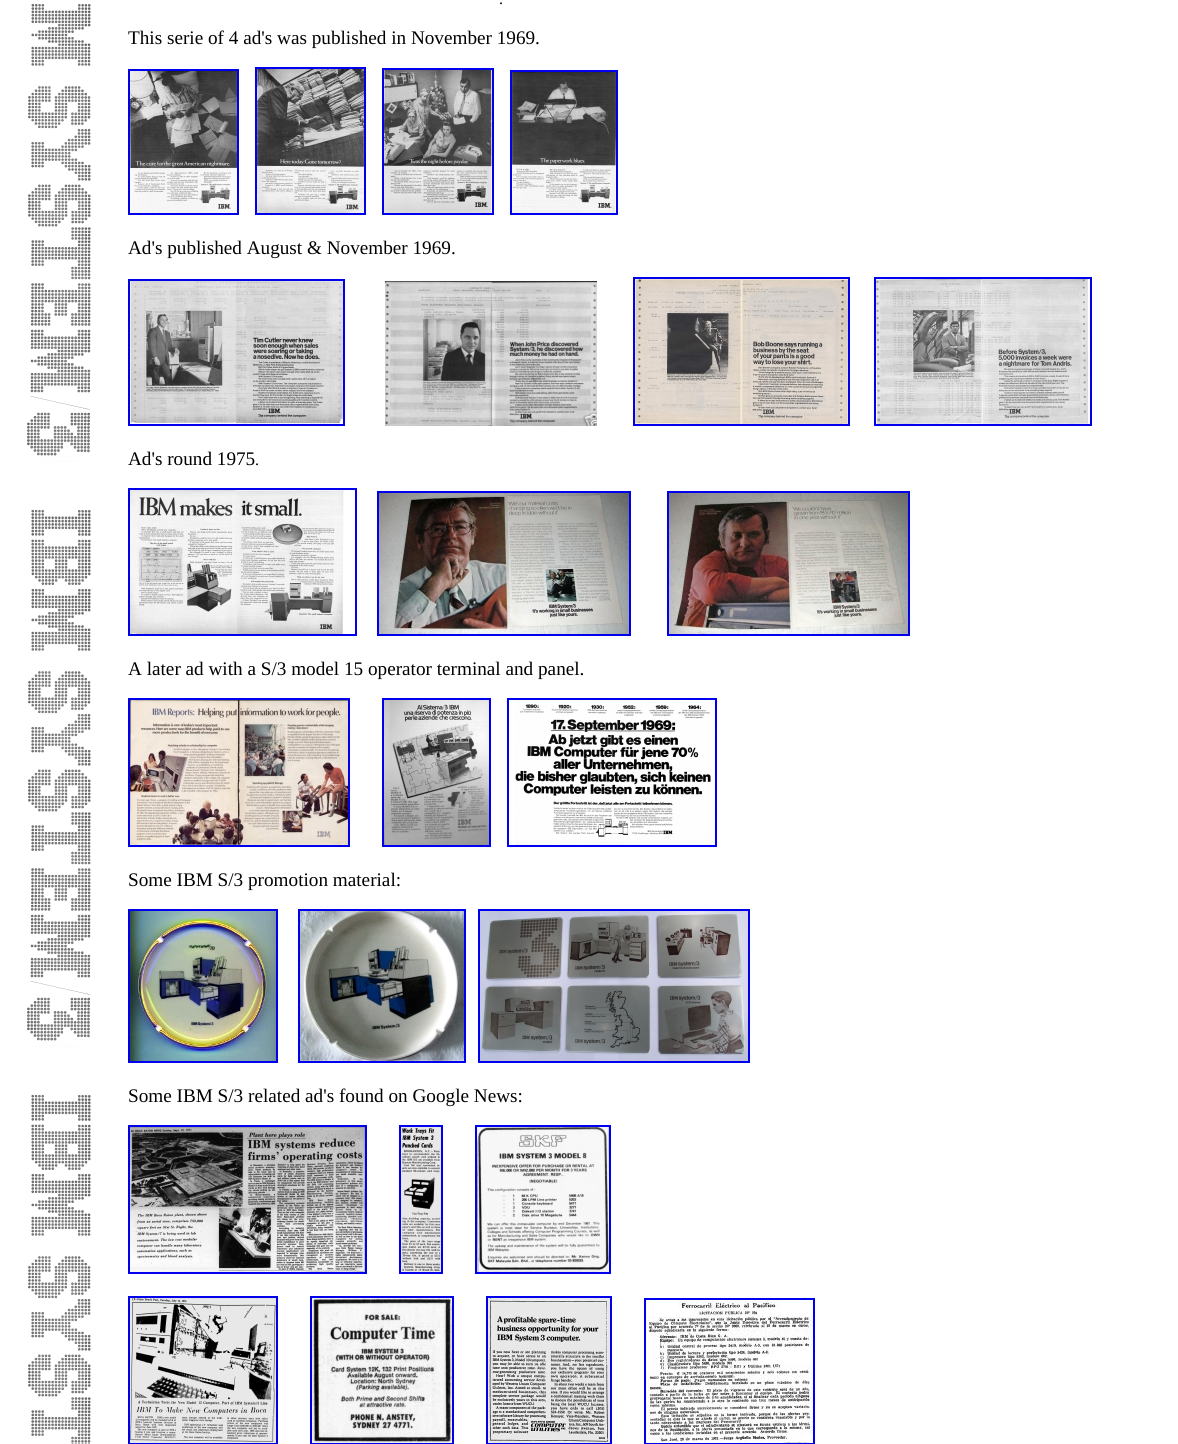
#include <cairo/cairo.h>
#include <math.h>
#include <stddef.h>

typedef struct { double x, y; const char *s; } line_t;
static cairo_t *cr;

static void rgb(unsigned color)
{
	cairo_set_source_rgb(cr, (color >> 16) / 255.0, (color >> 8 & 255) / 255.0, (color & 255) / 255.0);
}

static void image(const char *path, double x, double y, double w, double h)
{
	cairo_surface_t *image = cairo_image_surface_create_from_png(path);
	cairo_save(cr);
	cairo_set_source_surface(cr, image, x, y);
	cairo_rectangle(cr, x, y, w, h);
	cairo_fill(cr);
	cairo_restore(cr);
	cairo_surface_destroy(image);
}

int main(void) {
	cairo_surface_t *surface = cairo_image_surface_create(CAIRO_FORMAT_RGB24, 1178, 1444);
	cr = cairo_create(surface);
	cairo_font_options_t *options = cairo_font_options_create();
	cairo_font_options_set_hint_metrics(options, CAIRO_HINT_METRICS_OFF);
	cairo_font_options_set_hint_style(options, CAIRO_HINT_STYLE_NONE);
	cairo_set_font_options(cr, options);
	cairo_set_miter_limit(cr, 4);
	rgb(0xffffff);
	cairo_paint(cr);
	image("img/1.png", 26, 3, 381, 1441);
	cairo_rectangle(cr, 129, 70, 109, 144);
	rgb(0x0000ee);
	cairo_stroke(cr);
	cairo_rectangle(cr, 256, 68, 109, 146);
	cairo_stroke(cr);
	cairo_rectangle(cr, 383, 69, 110, 145);
	cairo_stroke(cr);
	image("img/2.png", 130, 71, 107, 142);
	image("img/3.png", 257, 69, 107, 144);
	image("img/4.png", 384, 70, 108, 143);
	cairo_rectangle(cr, 511, 71, 106, 143);
	cairo_stroke(cr);
	image("img/5.png", 512, 72, 104, 141);
	cairo_rectangle(cr, 129, 280, 215, 145);
	cairo_stroke(cr);
	cairo_rectangle(cr, 634, 278, 215, 147);
	cairo_stroke(cr);
	cairo_rectangle(cr, 875, 278, 216, 147);
	cairo_stroke(cr);
	image("img/6.png", 130, 281, 213, 143);
	image("img/7.png", 385, 281, 212, 145);
	image("img/8.png", 635, 279, 213, 145);
	image("img/9.png", 876, 279, 213, 145);
	cairo_rectangle(cr, 129, 489, 227, 146);
	cairo_stroke(cr);
	image("img/10.png", 130, 490, 214, 144);
	cairo_rectangle(cr, 378, 492, 252, 143);
	cairo_stroke(cr);
	cairo_rectangle(cr, 668, 492, 241, 143);
	cairo_stroke(cr);
	image("img/11.png", 379, 493, 250, 141);
	image("img/12.png", 669, 493, 239, 141);
	cairo_rectangle(cr, 129, 699, 220, 147);
	cairo_stroke(cr);
	cairo_rectangle(cr, 383, 699, 107, 147);
	cairo_stroke(cr);
	cairo_rectangle(cr, 508, 699, 208, 147);
	cairo_stroke(cr);
	image("img/13.png", 130, 700, 218, 145);
	image("img/14.png", 384, 700, 105, 145);
	image("img/15.png", 515, 700, 200, 145);
	cairo_rectangle(cr, 129, 910, 148, 152);
	cairo_stroke(cr);
	cairo_rectangle(cr, 299, 910, 166, 152);
	cairo_stroke(cr);
	cairo_rectangle(cr, 479, 910, 270, 152);
	cairo_stroke(cr);
	image("img/16.png", 130, 911, 146, 150);
	image("img/17.png", 300, 911, 164, 150);
	image("img/18.png", 480, 911, 268, 150);
	cairo_rectangle(cr, 129, 1126, 237, 147);
	cairo_stroke(cr);
	cairo_rectangle(cr, 400, 1126, 42, 147);
	cairo_stroke(cr);
	cairo_rectangle(cr, 476, 1126, 134, 147);
	cairo_stroke(cr);
	image("img/19.png", 130, 1127, 235, 145);
	image("img/20.png", 401, 1127, 40, 145);
	image("img/21.png", 477, 1127, 132, 145);
	cairo_rectangle(cr, 129, 1297, 148, 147);
	cairo_stroke(cr);
	cairo_rectangle(cr, 311, 1297, 142, 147);
	cairo_stroke(cr);
	cairo_rectangle(cr, 487, 1297, 124, 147);
	cairo_stroke(cr);
	image("img/22.png", 130, 1298, 146, 145);
	image("img/23.png", 312, 1298, 140, 145);
	image("img/24.png", 488, 1298, 122, 145);
	cairo_rectangle(cr, 645, 1299, 169, 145);
	cairo_stroke(cr);
	image("img/25.png", 646, 1300, 167, 143);
	cairo_select_font_face(cr, "Liberation Serif", CAIRO_FONT_SLANT_NORMAL, CAIRO_FONT_WEIGHT_NORMAL);
	cairo_set_font_size(cr, 16);
	rgb(0x000000);
	cairo_move_to(cr, 499, 4);
	cairo_show_text(cr, ".");
	cairo_set_font_size(cr, 19.2);
	{
		static const line_t items[] = {
			{128, 44, "This serie of 4 ad's was published in November 1969."},
			{128, 254, "Ad's published August & November 1969."},
			{128, 465, "Ad's round 1975"},
		};
		for (size_t i = 0; i < sizeof items / sizeof *items; i++) {
			cairo_move_to(cr, items[i].x, items[i].y);
			cairo_show_text(cr, items[i].s);
		}
	}
	cairo_set_font_size(cr, 16);
	cairo_move_to(cr, 255, 465);
	cairo_show_text(cr, ".");
	cairo_set_font_size(cr, 19.2);
	{
		static const line_t items[] = {
			{128, 675, "A later ad with a S/3 model 15 operator terminal and panel."},
			{128, 886, "Some IBM S/3 promotion material:"},
			{128, 1102, "Some IBM S/3 related ad's found on Google News:"},
		};
		for (size_t i = 0; i < sizeof items / sizeof *items; i++) {
			cairo_move_to(cr, items[i].x, items[i].y);
			cairo_show_text(cr, items[i].s);
		}
	}
	cairo_surface_write_to_png(surface, "page.png");
	cairo_font_options_destroy(options);
	cairo_destroy(cr);
	cairo_surface_destroy(surface);
	return 0;
}
